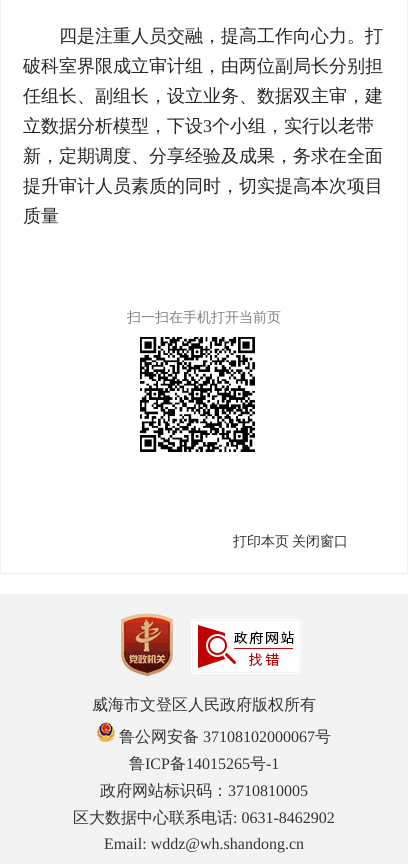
#include <cairo/cairo.h>
#include <math.h>
#include <stddef.h>

typedef struct { double x, y; const char *s; } line_t;
static cairo_t *cr;

static void rgb(unsigned color)
{
	cairo_set_source_rgb(cr, (color >> 16) / 255.0, (color >> 8 & 255) / 255.0, (color & 255) / 255.0);
}

static void image(const char *path, double x, double y, double w, double h)
{
	cairo_surface_t *image = cairo_image_surface_create_from_png(path);
	cairo_save(cr);
	cairo_set_source_surface(cr, image, x, y);
	cairo_rectangle(cr, x, y, w, h);
	cairo_fill(cr);
	cairo_restore(cr);
	cairo_surface_destroy(image);
}

int main(void) {
	cairo_surface_t *surface = cairo_image_surface_create(CAIRO_FORMAT_RGB24, 408, 864);
	cr = cairo_create(surface);
	cairo_font_options_t *options = cairo_font_options_create();
	cairo_font_options_set_hint_metrics(options, CAIRO_HINT_METRICS_OFF);
	cairo_font_options_set_hint_style(options, CAIRO_HINT_STYLE_NONE);
	cairo_set_font_options(cr, options);
	cairo_set_miter_limit(cr, 4);
	rgb(0xffffff);
	cairo_paint(cr);
	cairo_rectangle(cr, 0.5, -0.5, 407, 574);
	rgb(0xf0f0f0);
	cairo_set_line_width(cr, 1);
	cairo_stroke(cr);
	image("img/1.png", 140, 337, 115, 115);
	rgb(0xf3f3f3);
	cairo_rectangle(cr, 0, 594, 408, 270);
	cairo_fill(cr);
	image("img/2.png", 121, 613, 52, 64);
	image("img/3.png", 191, 619, 110, 55);
	image("img/4.png", 97, 722, 18, 20);
	cairo_select_font_face(cr, "WenQuanYi Zen Hei Medium", CAIRO_FONT_SLANT_NORMAL, CAIRO_FONT_WEIGHT_NORMAL);
	cairo_set_font_size(cr, 18);
	rgb(0x262626);
	{
		static const line_t items[] = {
			{59, 42, "四是注重人员交融，提高工作向心力。打"},
			{23, 72, "破科室界限成立审计组，由两位副局长分别担"},
			{23, 102, "任组长、副组长，设立业务、数据双主审，建"},
			{23, 132, "立数据分析模型，下设"},
		};
		for (size_t i = 0; i < sizeof items / sizeof *items; i++) {
			cairo_move_to(cr, items[i].x, items[i].y);
			cairo_show_text(cr, items[i].s);
		}
	}
	cairo_select_font_face(cr, "Liberation Serif", CAIRO_FONT_SLANT_NORMAL, CAIRO_FONT_WEIGHT_NORMAL);
	cairo_move_to(cr, 203, 132);
	cairo_show_text(cr, "3");
	cairo_select_font_face(cr, "WenQuanYi Zen Hei Medium", CAIRO_FONT_SLANT_NORMAL, CAIRO_FONT_WEIGHT_NORMAL);
	{
		static const line_t items[] = {
			{212, 132, "个小组，实行以老带"},
			{23, 162, "新，定期调度、分享经验及成果，务求在全面"},
			{23, 192, "提升审计人员素质的同时，切实提高本次项目"},
			{23, 222, "质量"},
		};
		for (size_t i = 0; i < sizeof items / sizeof *items; i++) {
			cairo_move_to(cr, items[i].x, items[i].y);
			cairo_show_text(cr, items[i].s);
		}
	}
	cairo_set_font_size(cr, 14);
	rgb(0x808080);
	cairo_move_to(cr, 127, 322);
	cairo_show_text(cr, "扫一扫在手机打开当前页");
	rgb(0x333333);
	cairo_move_to(cr, 233, 546);
	cairo_show_text(cr, "打印本页");
	cairo_move_to(cr, 292, 546);
	cairo_show_text(cr, "关闭窗口");
	cairo_set_font_size(cr, 16);
	cairo_move_to(cr, 92, 710);
	cairo_show_text(cr, "威海市文登区人民政府版权所有");
	cairo_move_to(cr, 119, 742);
	cairo_show_text(cr, "鲁公网安备");
	cairo_select_font_face(cr, "Liberation Serif", CAIRO_FONT_SLANT_NORMAL, CAIRO_FONT_WEIGHT_NORMAL);
	cairo_move_to(cr, 203, 742);
	cairo_show_text(cr, "37108102000067");
	cairo_select_font_face(cr, "WenQuanYi Zen Hei Medium", CAIRO_FONT_SLANT_NORMAL, CAIRO_FONT_WEIGHT_NORMAL);
	cairo_move_to(cr, 315, 742);
	cairo_show_text(cr, "号");
	cairo_move_to(cr, 129, 769);
	cairo_show_text(cr, "鲁");
	cairo_select_font_face(cr, "Liberation Serif", CAIRO_FONT_SLANT_NORMAL, CAIRO_FONT_WEIGHT_NORMAL);
	cairo_move_to(cr, 145, 769);
	cairo_show_text(cr, "ICP");
	cairo_select_font_face(cr, "WenQuanYi Zen Hei Medium", CAIRO_FONT_SLANT_NORMAL, CAIRO_FONT_WEIGHT_NORMAL);
	cairo_move_to(cr, 170, 769);
	cairo_show_text(cr, "备");
	cairo_select_font_face(cr, "Liberation Serif", CAIRO_FONT_SLANT_NORMAL, CAIRO_FONT_WEIGHT_NORMAL);
	cairo_move_to(cr, 186, 769);
	cairo_show_text(cr, "14015265");
	cairo_select_font_face(cr, "WenQuanYi Zen Hei Medium", CAIRO_FONT_SLANT_NORMAL, CAIRO_FONT_WEIGHT_NORMAL);
	cairo_move_to(cr, 250, 769);
	cairo_show_text(cr, "号");
	cairo_select_font_face(cr, "Liberation Serif", CAIRO_FONT_SLANT_NORMAL, CAIRO_FONT_WEIGHT_NORMAL);
	cairo_move_to(cr, 266, 769);
	cairo_show_text(cr, "-1");
	cairo_select_font_face(cr, "WenQuanYi Zen Hei Medium", CAIRO_FONT_SLANT_NORMAL, CAIRO_FONT_WEIGHT_NORMAL);
	cairo_move_to(cr, 100, 796);
	cairo_show_text(cr, "政府网站标识码：");
	cairo_select_font_face(cr, "Liberation Serif", CAIRO_FONT_SLANT_NORMAL, CAIRO_FONT_WEIGHT_NORMAL);
	cairo_move_to(cr, 228, 796);
	cairo_show_text(cr, "3710810005");
	cairo_select_font_face(cr, "WenQuanYi Zen Hei Medium", CAIRO_FONT_SLANT_NORMAL, CAIRO_FONT_WEIGHT_NORMAL);
	cairo_move_to(cr, 73, 823);
	cairo_show_text(cr, "区大数据中心联系电话");
	cairo_select_font_face(cr, "Liberation Serif", CAIRO_FONT_SLANT_NORMAL, CAIRO_FONT_WEIGHT_NORMAL);
	cairo_move_to(cr, 233, 823);
	cairo_show_text(cr, ": 0631-8462902");
	cairo_move_to(cr, 104, 849);
	cairo_show_text(cr, "Email: wddz@wh.shandong.cn");
	cairo_surface_write_to_png(surface, "page.png");
	cairo_font_options_destroy(options);
	cairo_destroy(cr);
	cairo_surface_destroy(surface);
	return 0;
}
